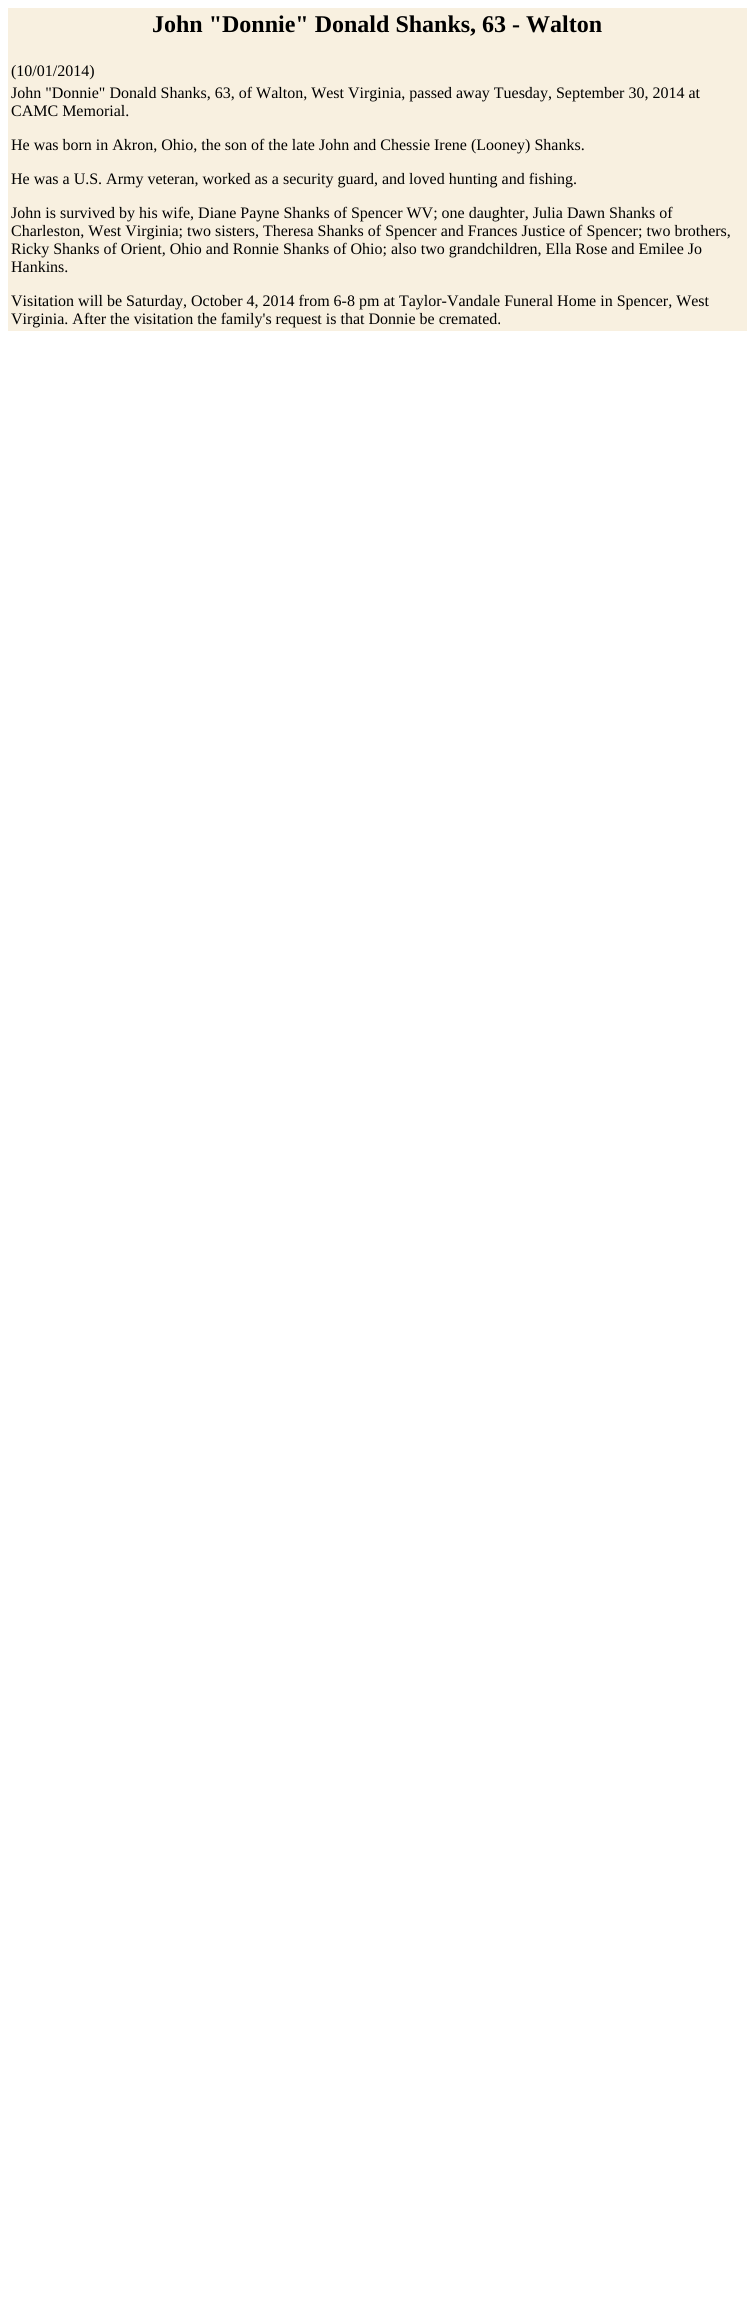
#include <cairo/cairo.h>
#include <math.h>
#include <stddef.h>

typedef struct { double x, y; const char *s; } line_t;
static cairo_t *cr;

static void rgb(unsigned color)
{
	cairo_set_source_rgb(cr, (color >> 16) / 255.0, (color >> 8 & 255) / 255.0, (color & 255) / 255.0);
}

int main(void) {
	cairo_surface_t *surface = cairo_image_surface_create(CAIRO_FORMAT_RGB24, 755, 2324);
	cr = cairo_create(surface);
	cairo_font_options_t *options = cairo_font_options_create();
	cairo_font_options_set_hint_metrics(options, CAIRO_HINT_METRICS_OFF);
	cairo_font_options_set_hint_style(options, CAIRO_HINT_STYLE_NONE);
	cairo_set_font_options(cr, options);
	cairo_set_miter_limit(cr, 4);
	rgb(0xffffff);
	cairo_paint(cr);
	rgb(0xf8f0e0);
	cairo_rectangle(cr, 8, 8, 739, 323);
	cairo_fill(cr);
	cairo_select_font_face(cr, "Liberation Serif", CAIRO_FONT_SLANT_NORMAL, CAIRO_FONT_WEIGHT_BOLD);
	cairo_set_font_size(cr, 24);
	rgb(0x000000);
	cairo_move_to(cr, 152, 32);
	cairo_show_text(cr, "John \"Donnie\" Donald Shanks, 63 - Walton");
	cairo_select_font_face(cr, "Liberation Serif", CAIRO_FONT_SLANT_NORMAL, CAIRO_FONT_WEIGHT_NORMAL);
	cairo_set_font_size(cr, 16);
	{
		static const line_t items[] = {
			{11, 76, "(10/01/2014)"},
			{11, 98, "John \"Donnie\" Donald Shanks, 63, of Walton, West Virginia, passed away Tuesday, September 30, 2014 at"},
			{11, 116, "CAMC Memorial."},
			{11, 150, "He was born in Akron, Ohio, the son of the late John and Chessie Irene (Looney) Shanks."},
			{11, 184, "He was a U.S. Army veteran, worked as a security guard, and loved hunting and fishing."},
			{11, 218, "John is survived by his wife, Diane Payne Shanks of Spencer WV; one daughter, Julia Dawn Shanks of"},
			{11, 236, "Charleston, West Virginia; two sisters, Theresa Shanks of Spencer and Frances Justice of Spencer; two brothers,"},
			{11, 254, "Ricky Shanks of Orient, Ohio and Ronnie Shanks of Ohio; also two grandchildren, Ella Rose and Emilee Jo"},
			{11, 272, "Hankins."},
			{11, 306, "Visitation will be Saturday, October 4, 2014 from 6-8 pm at Taylor-Vandale Funeral Home in Spencer, West"},
			{11, 324, "Virginia. After the visitation the family's request is that Donnie be cremated."},
		};
		for (size_t i = 0; i < sizeof items / sizeof *items; i++) {
			cairo_move_to(cr, items[i].x, items[i].y);
			cairo_show_text(cr, items[i].s);
		}
	}
	cairo_surface_write_to_png(surface, "page.png");
	cairo_font_options_destroy(options);
	cairo_destroy(cr);
	cairo_surface_destroy(surface);
	return 0;
}
